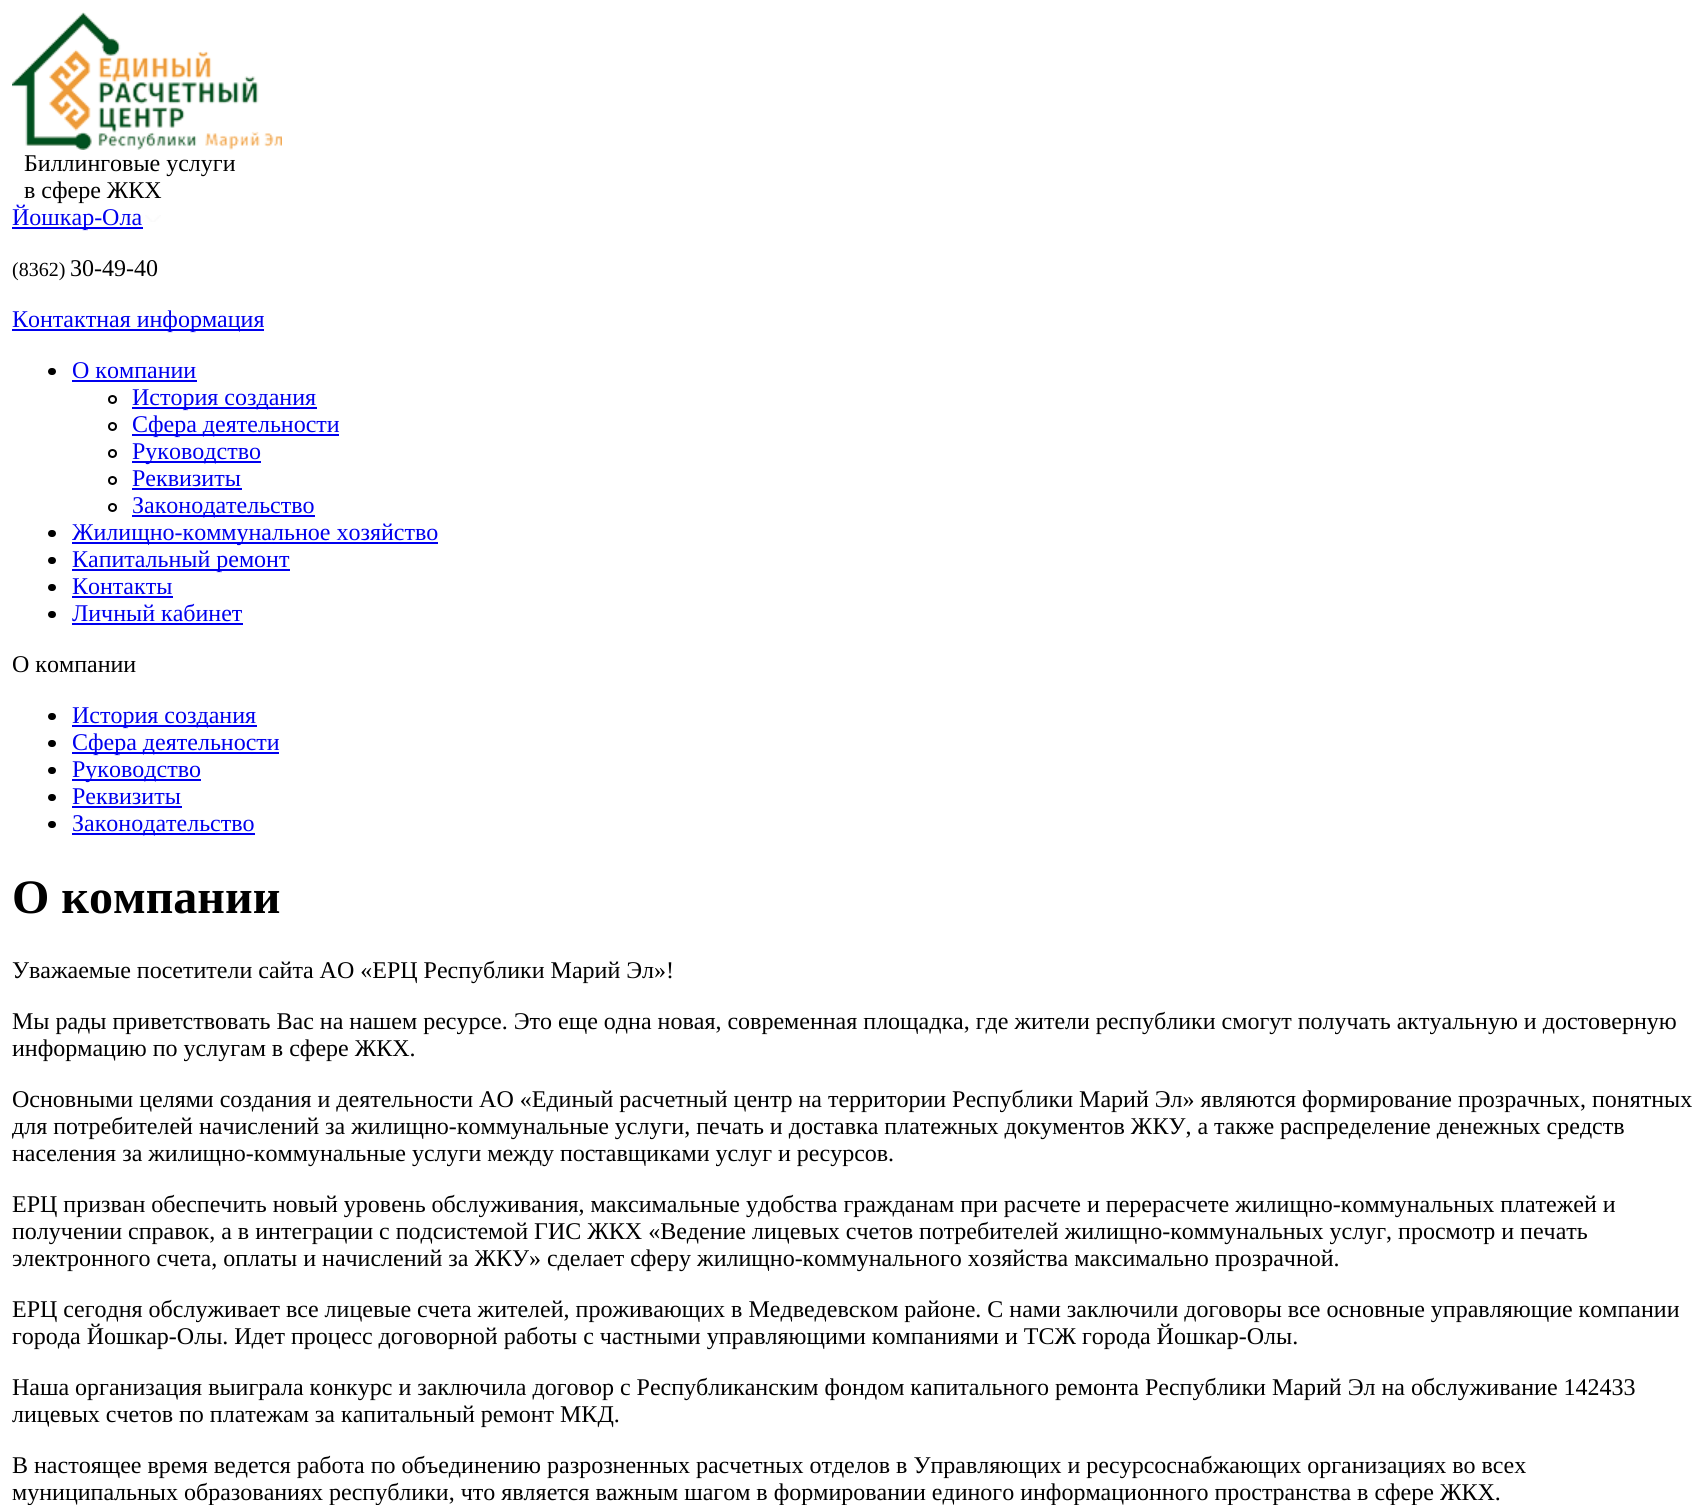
#include <cairo/cairo.h>
#include <math.h>
#include <stddef.h>

typedef struct { double x, y; const char *s; } line_t;
static cairo_t *cr;

static void rgb(unsigned color)
{
	cairo_set_source_rgb(cr, (color >> 16) / 255.0, (color >> 8 & 255) / 255.0, (color & 255) / 255.0);
}

static void rrect(double x, double y, double w, double h, double r)
{
	cairo_new_sub_path(cr);
	cairo_arc(cr, x + w - r, y + h - r, r, 0, M_PI / 2);
	cairo_arc(cr, x + r, y + h - r, r, M_PI / 2, M_PI);
	cairo_arc(cr, x + r, y + r, r, M_PI, 1.5 * M_PI);
	cairo_arc(cr, x + w - r, y + r, r, 1.5 * M_PI, 2 * M_PI);
	cairo_close_path(cr);
}

static void image(const char *path, double x, double y, double w, double h)
{
	cairo_surface_t *image = cairo_image_surface_create_from_png(path);
	cairo_save(cr);
	cairo_set_source_surface(cr, image, x, y);
	cairo_rectangle(cr, x, y, w, h);
	cairo_fill(cr);
	cairo_restore(cr);
	cairo_surface_destroy(image);
}

int main(void) {
	cairo_surface_t *surface = cairo_image_surface_create(CAIRO_FORMAT_RGB24, 1705, 1505);
	cr = cairo_create(surface);
	cairo_font_options_t *options = cairo_font_options_create();
	cairo_font_options_set_hint_metrics(options, CAIRO_HINT_METRICS_OFF);
	cairo_font_options_set_hint_style(options, CAIRO_HINT_STYLE_NONE);
	cairo_set_font_options(cr, options);
	cairo_set_miter_limit(cr, 4);
	rgb(0xffffff);
	cairo_paint(cr);
	image("img/1.png", 12, 12, 270, 138);
	rgb(0x0000ee);
	cairo_rectangle(cr, 12, 227, 131, 2);
	cairo_fill(cr);
	image("img/2.png", 145, 215, 16, 7);
	cairo_rectangle(cr, 12, 329, 252, 2);
	cairo_fill(cr);
	rgb(0x000000);
	rrect(48, 368, 8, 7, 3.5);
	cairo_fill(cr);
	rgb(0x0000ee);
	cairo_rectangle(cr, 72, 380, 125, 2);
	cairo_fill(cr);
	cairo_arc(cr, 112.5, 399.5, 3.5, 0, 2 * M_PI);
	rgb(0x000000);
	cairo_stroke(cr);
	rgb(0x0000ee);
	cairo_rectangle(cr, 132, 407, 185, 2);
	cairo_fill(cr);
	cairo_arc(cr, 112.5, 426.5, 3.5, 0, 2 * M_PI);
	rgb(0x000000);
	cairo_stroke(cr);
	rgb(0x0000ee);
	cairo_rectangle(cr, 132, 434, 207, 2);
	cairo_fill(cr);
	cairo_arc(cr, 112.5, 453.5, 3.5, 0, 2 * M_PI);
	rgb(0x000000);
	cairo_stroke(cr);
	rgb(0x0000ee);
	cairo_rectangle(cr, 132, 461, 129, 2);
	cairo_fill(cr);
	cairo_arc(cr, 112.5, 480.5, 3.5, 0, 2 * M_PI);
	rgb(0x000000);
	cairo_stroke(cr);
	rgb(0x0000ee);
	cairo_rectangle(cr, 132, 488, 110, 2);
	cairo_fill(cr);
	cairo_arc(cr, 112.5, 507.5, 3.5, 0, 2 * M_PI);
	rgb(0x000000);
	cairo_stroke(cr);
	rgb(0x0000ee);
	cairo_rectangle(cr, 132, 515, 183, 2);
	cairo_fill(cr);
	rgb(0x000000);
	rrect(48, 530, 8, 7, 3.5);
	cairo_fill(cr);
	rgb(0x0000ee);
	cairo_rectangle(cr, 72, 542, 366, 2);
	cairo_fill(cr);
	rgb(0x000000);
	rrect(48, 557, 8, 7, 3.5);
	cairo_fill(cr);
	rgb(0x0000ee);
	cairo_rectangle(cr, 72, 569, 218, 2);
	cairo_fill(cr);
	rgb(0x000000);
	rrect(48, 584, 8, 7, 3.5);
	cairo_fill(cr);
	rgb(0x0000ee);
	cairo_rectangle(cr, 72, 596, 101, 2);
	cairo_fill(cr);
	rgb(0x000000);
	rrect(48, 611, 8, 7, 3.5);
	cairo_fill(cr);
	rgb(0x0000ee);
	cairo_rectangle(cr, 72, 623, 171, 2);
	cairo_fill(cr);
	rgb(0x000000);
	rrect(48, 713, 8, 7, 3.5);
	cairo_fill(cr);
	rgb(0x0000ee);
	cairo_rectangle(cr, 72, 725, 185, 2);
	cairo_fill(cr);
	rgb(0x000000);
	rrect(48, 740, 8, 7, 3.5);
	cairo_fill(cr);
	rgb(0x0000ee);
	cairo_rectangle(cr, 72, 752, 207, 2);
	cairo_fill(cr);
	rgb(0x000000);
	rrect(48, 767, 8, 7, 3.5);
	cairo_fill(cr);
	rgb(0x0000ee);
	cairo_rectangle(cr, 72, 779, 129, 2);
	cairo_fill(cr);
	rgb(0x000000);
	rrect(48, 794, 8, 7, 3.5);
	cairo_fill(cr);
	rgb(0x0000ee);
	cairo_rectangle(cr, 72, 806, 110, 2);
	cairo_fill(cr);
	rgb(0x000000);
	rrect(48, 821, 8, 7, 3.5);
	cairo_fill(cr);
	rgb(0x0000ee);
	cairo_rectangle(cr, 72, 833, 183, 2);
	cairo_fill(cr);
	cairo_select_font_face(cr, "Liberation Serif", CAIRO_FONT_SLANT_NORMAL, CAIRO_FONT_WEIGHT_NORMAL);
	cairo_set_font_size(cr, 24);
	rgb(0x000000);
	cairo_move_to(cr, 24, 171);
	cairo_show_text(cr, "Биллинговые уcлуги");
	cairo_move_to(cr, 24, 198);
	cairo_show_text(cr, "в сфере ЖКХ");
	rgb(0x0000ee);
	cairo_move_to(cr, 12, 225);
	cairo_show_text(cr, "Йошкар-Ола");
	cairo_set_font_size(cr, 20);
	rgb(0x000000);
	cairo_move_to(cr, 12, 276);
	cairo_show_text(cr, "(8362)");
	cairo_set_font_size(cr, 24);
	cairo_move_to(cr, 70, 276);
	cairo_show_text(cr, "30-49-40");
	rgb(0x0000ee);
	{
		static const line_t items[] = {
			{12, 327, "Контактная информация"},
			{72, 378, "О компании"},
			{132, 405, "История создания"},
			{132, 432, "Сфера деятельности"},
			{132, 459, "Руководство"},
			{132, 486, "Реквизиты"},
			{132, 513, "Законодательство"},
			{72, 540, "Жилищно-коммунальное хозяйство"},
			{72, 567, "Капитальный ремонт"},
			{72, 594, "Контакты"},
			{72, 621, "Личный кабинет"},
		};
		for (size_t i = 0; i < sizeof items / sizeof *items; i++) {
			cairo_move_to(cr, items[i].x, items[i].y);
			cairo_show_text(cr, items[i].s);
		}
	}
	rgb(0x000000);
	cairo_move_to(cr, 12, 672);
	cairo_show_text(cr, "О компании");
	rgb(0x0000ee);
	{
		static const line_t items[] = {
			{72, 723, "История создания"},
			{72, 750, "Сфера деятельности"},
			{72, 777, "Руководство"},
			{72, 804, "Реквизиты"},
			{72, 831, "Законодательство"},
		};
		for (size_t i = 0; i < sizeof items / sizeof *items; i++) {
			cairo_move_to(cr, items[i].x, items[i].y);
			cairo_show_text(cr, items[i].s);
		}
	}
	cairo_select_font_face(cr, "Liberation Serif", CAIRO_FONT_SLANT_NORMAL, CAIRO_FONT_WEIGHT_BOLD);
	cairo_set_font_size(cr, 48);
	rgb(0x000000);
	cairo_move_to(cr, 12, 913);
	cairo_show_text(cr, "О компании");
	cairo_select_font_face(cr, "Liberation Serif", CAIRO_FONT_SLANT_NORMAL, CAIRO_FONT_WEIGHT_NORMAL);
	cairo_set_font_size(cr, 24);
	{
		static const line_t items[] = {
			{12, 978, "Уважаемые посетители сайта АО «ЕРЦ Республики Марий Эл»!"},
			{12, 1029, "Мы рады приветствовать Вас на нашем ресурсе. Это еще одна новая, современная площадка, где жители республики смогут получать актуальную и достоверную"},
			{12, 1056, "информацию по услугам в сфере ЖКХ."},
			{12, 1107, "Основными целями создания и деятельности АО «Единый расчетный центр на территории Республики Марий Эл» являются формирование прозрачных, понятных"},
			{12, 1134, "для потребителей начислений за жилищно-коммунальные услуги, печать и доставка платежных документов ЖКУ, а также распределение денежных средств"},
			{12, 1161, "населения за жилищно-коммунальные услуги между поставщиками услуг и ресурсов."},
			{12, 1212, "ЕРЦ призван обеспечить новый уровень обслуживания, максимальные удобства гражданам при расчете и перерасчете жилищно-коммунальных платежей и"},
			{12, 1239, "получении справок, а в интеграции с подсистемой ГИС ЖКХ «Ведение лицевых счетов потребителей жилищно-коммунальных услуг, просмотр и печать"},
			{12, 1266, "электронного счета, оплаты и начислений за ЖКУ» сделает сферу жилищно-коммунального хозяйства максимально прозрачной."},
			{12, 1317, "ЕРЦ сегодня обслуживает все лицевые счета жителей, проживающих в Медведевском районе. С нами заключили договоры все основные управляющие компании"},
			{12, 1344, "города Йошкар-Олы. Идет процесс договорной работы с частными управляющими компаниями и ТСЖ города Йошкар-Олы."},
			{12, 1395, "Наша организация выиграла конкурс и заключила договор с Республиканским фондом капитального ремонта Республики Марий Эл на обслуживание 142433"},
			{12, 1422, "лицевых счетов по платежам за капитальный ремонт МКД."},
			{12, 1473, "В настоящее время ведется работа по объединению разрозненных расчетных отделов в Управляющих и ресурсоснабжающих организациях во всех"},
			{12, 1500, "муниципальных образованиях республики, что является важным шагом в формировании единого информационного пространства в сфере ЖКХ."},
		};
		for (size_t i = 0; i < sizeof items / sizeof *items; i++) {
			cairo_move_to(cr, items[i].x, items[i].y);
			cairo_show_text(cr, items[i].s);
		}
	}
	cairo_surface_write_to_png(surface, "page.png");
	cairo_font_options_destroy(options);
	cairo_destroy(cr);
	cairo_surface_destroy(surface);
	return 0;
}
